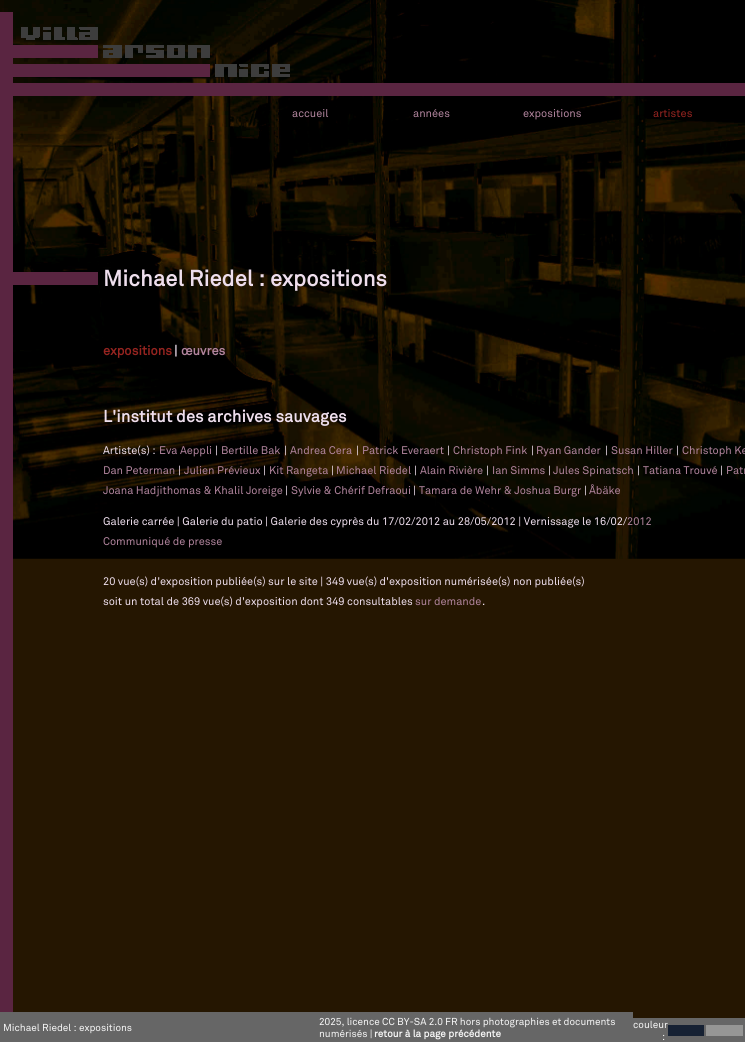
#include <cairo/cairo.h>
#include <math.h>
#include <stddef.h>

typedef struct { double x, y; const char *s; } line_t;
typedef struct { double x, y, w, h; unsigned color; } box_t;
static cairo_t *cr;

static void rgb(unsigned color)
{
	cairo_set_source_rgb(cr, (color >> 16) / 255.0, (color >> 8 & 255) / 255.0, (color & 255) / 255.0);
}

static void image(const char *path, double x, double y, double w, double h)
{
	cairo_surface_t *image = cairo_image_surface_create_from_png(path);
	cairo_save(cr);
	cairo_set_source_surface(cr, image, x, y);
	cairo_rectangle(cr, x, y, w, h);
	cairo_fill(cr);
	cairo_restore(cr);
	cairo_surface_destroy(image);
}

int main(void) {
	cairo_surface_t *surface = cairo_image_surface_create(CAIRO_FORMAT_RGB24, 745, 1042);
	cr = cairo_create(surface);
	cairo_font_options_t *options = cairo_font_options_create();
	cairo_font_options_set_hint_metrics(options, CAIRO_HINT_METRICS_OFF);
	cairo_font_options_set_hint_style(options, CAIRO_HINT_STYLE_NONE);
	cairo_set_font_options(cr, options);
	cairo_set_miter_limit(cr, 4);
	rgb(0x251601);
	cairo_paint(cr);
	image("img/1.png", 0, 0, 745, 559);
	rgb(0x5a2541);
	cairo_rectangle(cr, 0, 12, 13, 1000);
	cairo_fill(cr);
	image("img/2.png", 13, 27, 277, 50);
	{
		static const box_t items[] = {
			{13, 83, 732, 13, 0x5a2541},
			{13, 272, 85, 13, 0x5a2541},
			{0, 1012, 633, 30, 0x666666},
			{633, 1018, 112, 24, 0x666666},
			{668, 1025, 36, 11, 0x162133},
			{706, 1025, 37, 11, 0x969695},
		};
		for (size_t i = 0; i < sizeof items / sizeof *items; i++) {
			rgb(items[i].color);
			cairo_rectangle(cr, items[i].x, items[i].y, items[i].w, items[i].h);
			cairo_fill(cr);
		}
	}
	cairo_select_font_face(cr, "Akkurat", CAIRO_FONT_SLANT_NORMAL, CAIRO_FONT_WEIGHT_NORMAL);
	cairo_set_font_size(cr, 11);
	rgb(0xb1849d);
	{
		static const line_t items[] = {
			{292, 117, "accueil"},
			{413, 117, "années"},
			{523, 117, "expositions"},
		};
		for (size_t i = 0; i < sizeof items / sizeof *items; i++) {
			cairo_move_to(cr, items[i].x, items[i].y);
			cairo_show_text(cr, items[i].s);
		}
	}
	rgb(0x962420);
	cairo_move_to(cr, 653, 117);
	cairo_show_text(cr, "artistes");
	cairo_select_font_face(cr, "Akkurat", CAIRO_FONT_SLANT_NORMAL, CAIRO_FONT_WEIGHT_BOLD);
	cairo_set_font_size(cr, 22);
	rgb(0xeedeed);
	cairo_move_to(cr, 103, 286);
	cairo_show_text(cr, "Michael Riedel : expositions");
	cairo_set_font_size(cr, 13);
	rgb(0x962420);
	cairo_move_to(cr, 103, 355);
	cairo_show_text(cr, "expositions");
	rgb(0xeedeed);
	cairo_move_to(cr, 174, 355);
	cairo_show_text(cr, "|");
	rgb(0xb1849d);
	cairo_move_to(cr, 181, 355);
	cairo_show_text(cr, "œuvres");
	cairo_set_font_size(cr, 16.5);
	rgb(0xeedeed);
	cairo_move_to(cr, 103, 422);
	cairo_show_text(cr, "L'institut des archives sauvages");
	cairo_select_font_face(cr, "Akkurat", CAIRO_FONT_SLANT_NORMAL, CAIRO_FONT_WEIGHT_NORMAL);
	cairo_set_font_size(cr, 11);
	cairo_move_to(cr, 103, 454);
	cairo_show_text(cr, "Artiste(s) :");
	rgb(0xb1849d);
	cairo_move_to(cr, 159, 454);
	cairo_show_text(cr, "Eva Aeppli");
	rgb(0xeedeed);
	cairo_move_to(cr, 215, 454);
	cairo_show_text(cr, "|");
	rgb(0xb1849d);
	cairo_move_to(cr, 221, 454);
	cairo_show_text(cr, "Bertille Bak");
	rgb(0xeedeed);
	cairo_move_to(cr, 284, 454);
	cairo_show_text(cr, "|");
	rgb(0xb1849d);
	cairo_move_to(cr, 290, 454);
	cairo_show_text(cr, "Andrea Cera");
	rgb(0xeedeed);
	cairo_move_to(cr, 356, 454);
	cairo_show_text(cr, "|");
	rgb(0xb1849d);
	cairo_move_to(cr, 362, 454);
	cairo_show_text(cr, "Patrick Everaert");
	rgb(0xeedeed);
	cairo_move_to(cr, 447, 454);
	cairo_show_text(cr, "|");
	rgb(0xb1849d);
	cairo_move_to(cr, 453, 454);
	cairo_show_text(cr, "Christoph Fink");
	rgb(0xeedeed);
	cairo_move_to(cr, 531, 454);
	cairo_show_text(cr, "|");
	rgb(0xb1849d);
	cairo_move_to(cr, 536, 454);
	cairo_show_text(cr, "Ryan Gander");
	rgb(0xeedeed);
	cairo_move_to(cr, 605, 454);
	cairo_show_text(cr, "|");
	rgb(0xb1849d);
	cairo_move_to(cr, 611, 454);
	cairo_show_text(cr, "Susan Hiller");
	rgb(0xeedeed);
	cairo_move_to(cr, 676, 454);
	cairo_show_text(cr, "|");
	rgb(0xb1849d);
	cairo_move_to(cr, 682, 454);
	cairo_show_text(cr, "Christoph Ke");
	cairo_move_to(cr, 103, 474);
	cairo_show_text(cr, "Dan Peterman");
	rgb(0xeedeed);
	cairo_move_to(cr, 178, 474);
	cairo_show_text(cr, "|");
	rgb(0xb1849d);
	cairo_move_to(cr, 184, 474);
	cairo_show_text(cr, "Julien Prévieux");
	rgb(0xeedeed);
	cairo_move_to(cr, 263, 474);
	cairo_show_text(cr, "|");
	rgb(0xb1849d);
	cairo_move_to(cr, 269, 474);
	cairo_show_text(cr, "Kit Rangeta");
	rgb(0xeedeed);
	cairo_move_to(cr, 331, 474);
	cairo_show_text(cr, "|");
	rgb(0xb1849d);
	cairo_move_to(cr, 336, 474);
	cairo_show_text(cr, "Michael Riedel");
	rgb(0xeedeed);
	cairo_move_to(cr, 414, 474);
	cairo_show_text(cr, "|");
	rgb(0xb1849d);
	cairo_move_to(cr, 420, 474);
	cairo_show_text(cr, "Alain Rivière");
	rgb(0xeedeed);
	cairo_move_to(cr, 486, 474);
	cairo_show_text(cr, "|");
	rgb(0xb1849d);
	cairo_move_to(cr, 492, 474);
	cairo_show_text(cr, "Ian Simms");
	rgb(0xeedeed);
	cairo_move_to(cr, 548, 474);
	cairo_show_text(cr, "|");
	rgb(0xb1849d);
	cairo_move_to(cr, 553, 474);
	cairo_show_text(cr, "Jules Spinatsch");
	rgb(0xeedeed);
	cairo_move_to(cr, 637, 474);
	cairo_show_text(cr, "|");
	rgb(0xb1849d);
	cairo_move_to(cr, 643, 474);
	cairo_show_text(cr, "Tatiana Trouvé");
	rgb(0xeedeed);
	cairo_move_to(cr, 720, 474);
	cairo_show_text(cr, "|");
	rgb(0xb1849d);
	cairo_move_to(cr, 726, 474);
	cairo_show_text(cr, "Patr");
	cairo_move_to(cr, 103, 494);
	cairo_show_text(cr, "Joana Hadjithomas & Khalil Joreige");
	rgb(0xeedeed);
	cairo_move_to(cr, 285, 494);
	cairo_show_text(cr, "|");
	rgb(0xb1849d);
	cairo_move_to(cr, 291, 494);
	cairo_show_text(cr, "Sylvie & Chérif Defraoui");
	rgb(0xeedeed);
	cairo_move_to(cr, 413, 494);
	cairo_show_text(cr, "|");
	rgb(0xb1849d);
	cairo_move_to(cr, 419, 494);
	cairo_show_text(cr, "Tamara de Wehr & Joshua Burgr");
	rgb(0xeedeed);
	cairo_move_to(cr, 584, 494);
	cairo_show_text(cr, "|");
	rgb(0xb1849d);
	cairo_move_to(cr, 589, 494);
	cairo_show_text(cr, "Åbäke");
	rgb(0xeedeed);
	cairo_move_to(cr, 103, 525);
	cairo_show_text(cr, "Galerie carrée | Galerie du patio | Galerie des cyprès du 17/02/2012 au 28/05/2012 | Vernissage le 16/02/");
	rgb(0xb1849d);
	cairo_move_to(cr, 627, 525);
	cairo_show_text(cr, "2012");
	cairo_move_to(cr, 103, 545);
	cairo_show_text(cr, "Communiqué de presse");
	rgb(0xeedeed);
	cairo_move_to(cr, 103, 585);
	cairo_show_text(cr, "20 vue(s) d'exposition publiée(s) sur le site | 349 vue(s) d'exposition numérisée(s) non publiée(s)");
	cairo_move_to(cr, 103, 605);
	cairo_show_text(cr, "soit un total de 369 vue(s) d'exposition dont 349 consultables");
	rgb(0xb1849d);
	cairo_move_to(cr, 415, 605);
	cairo_show_text(cr, "sur demande");
	rgb(0xeedeed);
	cairo_move_to(cr, 482, 605);
	cairo_show_text(cr, ".");
	cairo_set_font_size(cr, 10);
	rgb(0xf6f6f6);
	{
		static const line_t items[] = {
			{3, 1031, "Michael Riedel : expositions"},
			{319, 1025, "2025, licence CC BY-SA 2.0 FR hors photographies et documents"},
			{319, 1037, "numérisés |"},
		};
		for (size_t i = 0; i < sizeof items / sizeof *items; i++) {
			cairo_move_to(cr, items[i].x, items[i].y);
			cairo_show_text(cr, items[i].s);
		}
	}
	cairo_select_font_face(cr, "Akkurat", CAIRO_FONT_SLANT_NORMAL, CAIRO_FONT_WEIGHT_BOLD);
	cairo_move_to(cr, 374, 1037);
	cairo_show_text(cr, "retour à la page précédente");
	cairo_select_font_face(cr, "Akkurat", CAIRO_FONT_SLANT_NORMAL, CAIRO_FONT_WEIGHT_NORMAL);
	cairo_move_to(cr, 633, 1028);
	cairo_show_text(cr, "couleur");
	cairo_move_to(cr, 662, 1040);
	cairo_show_text(cr, ":");
	cairo_surface_write_to_png(surface, "page.png");
	cairo_font_options_destroy(options);
	cairo_destroy(cr);
	cairo_surface_destroy(surface);
	return 0;
}
